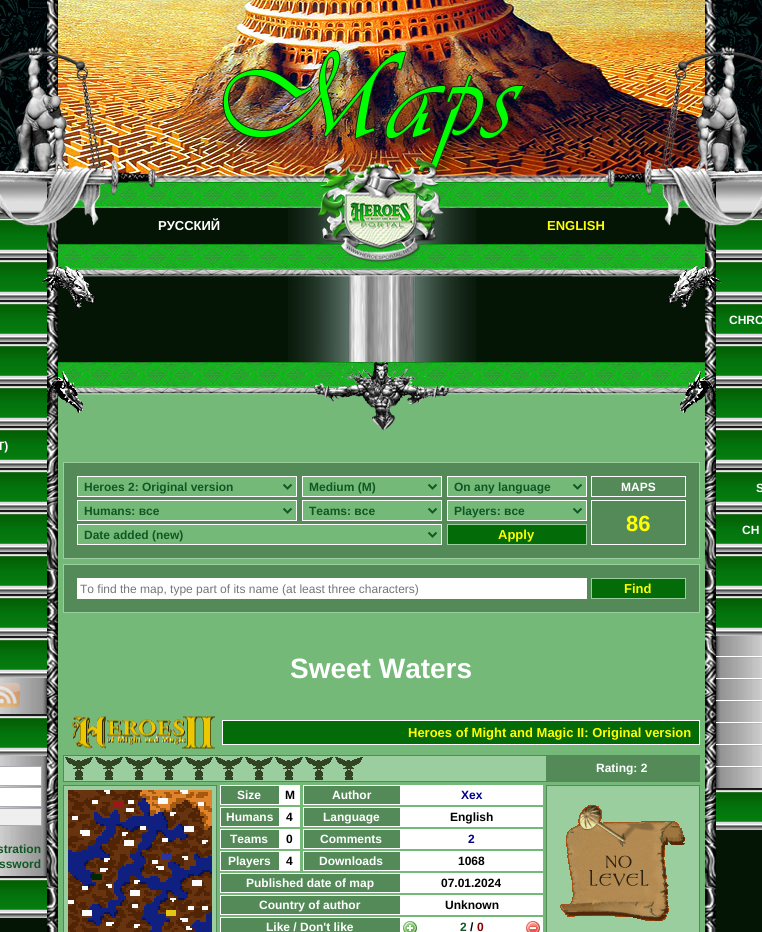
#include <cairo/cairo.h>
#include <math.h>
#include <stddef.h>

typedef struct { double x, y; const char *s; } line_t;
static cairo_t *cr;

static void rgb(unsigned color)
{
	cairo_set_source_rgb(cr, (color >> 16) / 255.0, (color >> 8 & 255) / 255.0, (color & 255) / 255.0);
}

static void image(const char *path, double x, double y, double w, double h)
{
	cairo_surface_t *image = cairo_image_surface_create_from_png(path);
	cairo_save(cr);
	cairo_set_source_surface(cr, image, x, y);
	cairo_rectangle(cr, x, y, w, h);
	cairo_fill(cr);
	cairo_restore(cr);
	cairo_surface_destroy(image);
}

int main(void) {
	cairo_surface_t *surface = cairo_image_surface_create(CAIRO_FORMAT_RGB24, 762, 932);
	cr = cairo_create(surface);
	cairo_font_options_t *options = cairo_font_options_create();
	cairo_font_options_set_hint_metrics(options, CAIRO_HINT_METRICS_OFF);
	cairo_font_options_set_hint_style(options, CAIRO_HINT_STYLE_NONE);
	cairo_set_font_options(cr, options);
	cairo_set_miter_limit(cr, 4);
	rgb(0xffffff);
	cairo_paint(cr);
	image("img/1.png", 0, 0, 762, 876);
	rgb(0x74b978);
	cairo_rectangle(cr, 58, 393, 647, 539);
	cairo_fill(cr);
	image("img/2.png", 47, 0, 11, 932);
	image("img/3.png", 58, 0, 647, 182);
	image("img/2.png", 705, 0, 11, 932);
	image("img/6.png", 0, 181, 47, 38);
	image("img/7.png", 0, 219, 47, 39);
	image("img/10.png", 72, 182, 619, 26);
	image("img/12.png", 128, 174, 507, 8);
	rgb(0x041505);
	cairo_rectangle(cr, 58, 208, 647, 36);
	cairo_fill(cr);
	image("img/4.png", 0, 45, 158, 181);
	image("img/5.png", 0, 678, 47, 198);
	image("img/8.png", 0, 258, 47, 42);
	image("img/8.png", 0, 300, 47, 42);
	image("img/8.png", 0, 342, 47, 42);
	image("img/8.png", 0, 384, 47, 42);
	image("img/8.png", 0, 426, 47, 42);
	image("img/8.png", 0, 468, 47, 42);
	image("img/8.png", 0, 510, 47, 42);
	image("img/8.png", 0, 552, 47, 42);
	image("img/8.png", 0, 594, 47, 42);
	image("img/8.png", 0, 636, 47, 42);
	image("img/9.png", 0, 683, 20, 24);
	image("img/8.png", 0, 714, 47, 42);
	rgb(0xffffff);
	cairo_rectangle(cr, -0.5, 766.5, 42, 19);
	cairo_fill_preserve(cr);
	rgb(0xabadb3);
	cairo_set_line_width(cr, 1);
	cairo_stroke(cr);
	rgb(0xffffff);
	cairo_rectangle(cr, -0.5, 787.5, 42, 19);
	cairo_fill_preserve(cr);
	rgb(0xabadb3);
	cairo_stroke(cr);
	rgb(0xefefef);
	cairo_rectangle(cr, -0.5, 808.5, 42, 17);
	cairo_fill_preserve(cr);
	rgb(0xabadb3);
	cairo_stroke(cr);
	image("img/8.png", 0, 876, 47, 42);
	rgb(0x041505);
	cairo_rectangle(cr, 0, 918, 47, 14);
	cairo_fill(cr);
	image("img/13.png", 288, 208, 188, 36);
	image("img/14.png", 58, 244, 647, 26);
	image("img/11.png", 318, 157, 126, 106);
	cairo_rectangle(cr, 58, 275, 647, 87);
	cairo_fill(cr);
	image("img/19.png", 288, 275, 188, 87);
	image("img/15.png", 73, 270, 617, 7);
	image("img/16.png", 42, 266, 53, 43);
	image("img/33.png", 716, 258, 46, 42);
	image("img/33.png", 716, 300, 46, 42);
	image("img/17.png", 668, 266, 53, 43);
	image("img/14.png", 58, 362, 647, 26);
	image("img/20.png", 58, 388, 647, 7);
	image("img/18.png", 314, 361, 136, 70);
	image("img/21.png", 47, 371, 36, 55);
	image("img/22.png", 680, 371, 36, 55);
	rgb(0x548a58);
	cairo_rectangle(cr, 63.5, 462.5, 636, 96);
	cairo_fill_preserve(cr);
	rgb(0x9ace9e);
	cairo_stroke(cr);
	rgb(0x74b978);
	cairo_rectangle(cr, 77.5, 476.5, 219, 20);
	cairo_fill_preserve(cr);
	rgb(0xffffff);
	cairo_stroke(cr);
	cairo_new_path(cr);
	cairo_move_to(cr, 283.5, 484.5);
	cairo_line_to(cr, 287.5, 488.5);
	cairo_line_to(cr, 291.5, 484.5);
	rgb(0x0f5823);
	cairo_set_line_width(cr, 2);
	cairo_stroke(cr);
	rgb(0x74b978);
	cairo_rectangle(cr, 302.5, 476.5, 139, 20);
	cairo_fill_preserve(cr);
	rgb(0xffffff);
	cairo_set_line_width(cr, 1);
	cairo_stroke(cr);
	cairo_new_path(cr);
	cairo_move_to(cr, 428.5, 484.5);
	cairo_line_to(cr, 432.5, 488.5);
	cairo_line_to(cr, 436.5, 484.5);
	rgb(0x0f5823);
	cairo_set_line_width(cr, 2);
	cairo_stroke(cr);
	rgb(0x74b978);
	cairo_rectangle(cr, 447.5, 476.5, 139, 20);
	cairo_fill_preserve(cr);
	rgb(0xffffff);
	cairo_set_line_width(cr, 1);
	cairo_stroke(cr);
	cairo_new_path(cr);
	cairo_move_to(cr, 573.5, 484.5);
	cairo_line_to(cr, 577.5, 488.5);
	cairo_line_to(cr, 581.5, 484.5);
	rgb(0x0f5823);
	cairo_set_line_width(cr, 2);
	cairo_stroke(cr);
	rgb(0x74b978);
	cairo_rectangle(cr, 77.5, 500.5, 219, 20);
	cairo_fill_preserve(cr);
	rgb(0xffffff);
	cairo_set_line_width(cr, 1);
	cairo_stroke(cr);
	cairo_new_path(cr);
	cairo_move_to(cr, 283.5, 508.5);
	cairo_line_to(cr, 287.5, 512.5);
	cairo_line_to(cr, 291.5, 508.5);
	rgb(0x0f5823);
	cairo_set_line_width(cr, 2);
	cairo_stroke(cr);
	rgb(0x74b978);
	cairo_rectangle(cr, 302.5, 500.5, 139, 20);
	cairo_fill_preserve(cr);
	rgb(0xffffff);
	cairo_set_line_width(cr, 1);
	cairo_stroke(cr);
	cairo_new_path(cr);
	cairo_move_to(cr, 428.5, 508.5);
	cairo_line_to(cr, 432.5, 512.5);
	cairo_line_to(cr, 436.5, 508.5);
	rgb(0x0f5823);
	cairo_set_line_width(cr, 2);
	cairo_stroke(cr);
	rgb(0x74b978);
	cairo_rectangle(cr, 447.5, 500.5, 139, 20);
	cairo_fill_preserve(cr);
	rgb(0xffffff);
	cairo_set_line_width(cr, 1);
	cairo_stroke(cr);
	cairo_new_path(cr);
	cairo_move_to(cr, 573.5, 508.5);
	cairo_line_to(cr, 577.5, 512.5);
	cairo_line_to(cr, 581.5, 508.5);
	rgb(0x0f5823);
	cairo_set_line_width(cr, 2);
	cairo_stroke(cr);
	rgb(0x74b978);
	cairo_rectangle(cr, 77.5, 524.5, 364, 20);
	cairo_fill_preserve(cr);
	rgb(0xffffff);
	cairo_set_line_width(cr, 1);
	cairo_stroke(cr);
	cairo_new_path(cr);
	cairo_move_to(cr, 428.5, 532.5);
	cairo_line_to(cr, 432.5, 536.5);
	cairo_line_to(cr, 436.5, 532.5);
	rgb(0x0f5823);
	cairo_set_line_width(cr, 2);
	cairo_stroke(cr);
	rgb(0x046b09);
	cairo_rectangle(cr, 447.5, 524.5, 139, 20);
	cairo_fill_preserve(cr);
	rgb(0x9ace9e);
	cairo_set_line_width(cr, 1);
	cairo_stroke(cr);
	cairo_rectangle(cr, 591.5, 476.5, 94, 20);
	rgb(0xffffff);
	cairo_stroke(cr);
	cairo_rectangle(cr, 591.5, 500.5, 94, 44);
	cairo_stroke(cr);
	rgb(0x548a58);
	cairo_rectangle(cr, 63.5, 564.5, 636, 48);
	cairo_fill_preserve(cr);
	rgb(0x9ace9e);
	cairo_stroke(cr);
	rgb(0xffffff);
	cairo_rectangle(cr, 77, 578, 510, 21);
	cairo_fill(cr);
	rgb(0x046b09);
	cairo_rectangle(cr, 591.5, 578.5, 94, 20);
	cairo_fill_preserve(cr);
	rgb(0x9ace9e);
	cairo_stroke(cr);
	rgb(0x046b09);
	cairo_rectangle(cr, 222.5, 720.5, 477, 24);
	cairo_fill_preserve(cr);
	rgb(0xffffff);
	cairo_stroke(cr);
	image("img/23.png", 72, 716, 143, 33);
	rgb(0x9ace9e);
	cairo_rectangle(cr, 64, 756, 482, 25);
	cairo_fill(cr);
	cairo_rectangle(cr, 63.5, 755.5, 636, 26);
	rgb(0x548a58);
	cairo_stroke(cr);
	image("img/24.png", 65, 757, 28, 23);
	image("img/24.png", 95, 757, 28, 23);
	image("img/24.png", 125, 757, 28, 23);
	image("img/24.png", 155, 757, 28, 23);
	image("img/24.png", 185, 757, 28, 23);
	image("img/24.png", 215, 757, 28, 23);
	image("img/24.png", 245, 757, 28, 23);
	image("img/24.png", 275, 757, 28, 23);
	image("img/24.png", 305, 757, 28, 23);
	image("img/24.png", 335, 757, 28, 23);
	cairo_rectangle(cr, 546, 756, 153, 25);
	cairo_fill(cr);
	rgb(0x9ace9e);
	cairo_rectangle(cr, 63.5, 785.5, 153, 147);
	cairo_fill_preserve(cr);
	rgb(0x548a58);
	cairo_stroke(cr);
	image("img/25.png", 68, 790, 144, 142);
	cairo_rectangle(cr, 220.5, 785.5, 59, 19);
	cairo_fill_preserve(cr);
	rgb(0xffffff);
	cairo_stroke(cr);
	cairo_rectangle(cr, 280, 785, 20, 20);
	cairo_fill(cr);
	rgb(0x548a58);
	cairo_rectangle(cr, 303.5, 785.5, 97, 19);
	cairo_fill_preserve(cr);
	rgb(0xffffff);
	cairo_stroke(cr);
	cairo_rectangle(cr, 401, 785, 142, 20);
	cairo_fill(cr);
	rgb(0x548a58);
	cairo_rectangle(cr, 220.5, 807.5, 59, 19);
	cairo_fill_preserve(cr);
	rgb(0xffffff);
	cairo_stroke(cr);
	cairo_rectangle(cr, 280, 807, 20, 20);
	cairo_fill(cr);
	rgb(0x548a58);
	cairo_rectangle(cr, 303.5, 807.5, 97, 19);
	cairo_fill_preserve(cr);
	rgb(0xffffff);
	cairo_stroke(cr);
	cairo_rectangle(cr, 401, 807, 142, 20);
	cairo_fill(cr);
	rgb(0x548a58);
	cairo_rectangle(cr, 220.5, 829.5, 59, 19);
	cairo_fill_preserve(cr);
	rgb(0xffffff);
	cairo_stroke(cr);
	cairo_rectangle(cr, 280, 829, 20, 20);
	cairo_fill(cr);
	rgb(0x548a58);
	cairo_rectangle(cr, 303.5, 829.5, 97, 19);
	cairo_fill_preserve(cr);
	rgb(0xffffff);
	cairo_stroke(cr);
	cairo_rectangle(cr, 401, 829, 142, 20);
	cairo_fill(cr);
	rgb(0x548a58);
	cairo_rectangle(cr, 220.5, 851.5, 59, 19);
	cairo_fill_preserve(cr);
	rgb(0xffffff);
	cairo_stroke(cr);
	cairo_rectangle(cr, 280, 851, 20, 20);
	cairo_fill(cr);
	rgb(0x548a58);
	cairo_rectangle(cr, 303.5, 851.5, 97, 19);
	cairo_fill_preserve(cr);
	rgb(0xffffff);
	cairo_stroke(cr);
	cairo_rectangle(cr, 401, 851, 142, 20);
	cairo_fill(cr);
	rgb(0x548a58);
	cairo_rectangle(cr, 220.5, 873.5, 180, 19);
	cairo_fill_preserve(cr);
	rgb(0xffffff);
	cairo_stroke(cr);
	cairo_rectangle(cr, 401, 873, 142, 20);
	cairo_fill(cr);
	rgb(0x548a58);
	cairo_rectangle(cr, 220.5, 895.5, 180, 19);
	cairo_fill_preserve(cr);
	rgb(0xffffff);
	cairo_stroke(cr);
	cairo_rectangle(cr, 401, 895, 142, 20);
	cairo_fill(cr);
	rgb(0x548a58);
	cairo_rectangle(cr, 220.5, 917.5, 180, 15);
	cairo_fill_preserve(cr);
	rgb(0xffffff);
	cairo_stroke(cr);
	cairo_rectangle(cr, 401, 917, 142, 15);
	cairo_fill(cr);
	image("img/26.png", 403, 921, 14, 11);
	image("img/27.png", 526, 921, 14, 11);
	rgb(0x9ace9e);
	cairo_rectangle(cr, 546.5, 785.5, 153, 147);
	cairo_fill_preserve(cr);
	rgb(0x548a58);
	cairo_stroke(cr);
	image("img/28.png", 560, 805, 125, 116);
	image("img/31.png", 716, 181, 46, 38);
	image("img/32.png", 716, 219, 46, 39);
	image("img/29.png", 605, 45, 157, 181);
	image("img/30.png", 716, 636, 46, 152);
	image("img/33.png", 716, 342, 46, 42);
	image("img/33.png", 716, 384, 46, 42);
	image("img/33.png", 716, 426, 46, 42);
	image("img/33.png", 716, 468, 46, 42);
	image("img/33.png", 716, 510, 46, 42);
	image("img/33.png", 716, 552, 46, 42);
	image("img/33.png", 716, 594, 46, 42);
	rgb(0xffffff);
	cairo_rectangle(cr, 716, 656, 46, 1);
	cairo_fill(cr);
	cairo_set_source_rgba(cr, 0.565, 0.565, 0.565, 0.21);
	cairo_rectangle(cr, 716, 657, 46, 1);
	cairo_fill(cr);
	rgb(0xffffff);
	cairo_rectangle(cr, 716, 678, 46, 1);
	cairo_fill(cr);
	cairo_set_source_rgba(cr, 0.565, 0.565, 0.565, 0.21);
	cairo_rectangle(cr, 716, 679, 46, 1);
	cairo_fill(cr);
	rgb(0xffffff);
	cairo_rectangle(cr, 716, 700, 46, 1);
	cairo_fill(cr);
	cairo_set_source_rgba(cr, 0.565, 0.565, 0.565, 0.21);
	cairo_rectangle(cr, 716, 701, 46, 1);
	cairo_fill(cr);
	rgb(0xffffff);
	cairo_rectangle(cr, 716, 722, 46, 1);
	cairo_fill(cr);
	cairo_set_source_rgba(cr, 0.565, 0.565, 0.565, 0.21);
	cairo_rectangle(cr, 716, 723, 46, 1);
	cairo_fill(cr);
	rgb(0xffffff);
	cairo_rectangle(cr, 716, 744, 46, 1);
	cairo_fill(cr);
	cairo_set_source_rgba(cr, 0.565, 0.565, 0.565, 0.21);
	cairo_rectangle(cr, 716, 745, 46, 1);
	cairo_fill(cr);
	rgb(0xffffff);
	cairo_rectangle(cr, 716, 766, 46, 1);
	cairo_fill(cr);
	cairo_set_source_rgba(cr, 0.565, 0.565, 0.565, 0.21);
	cairo_rectangle(cr, 716, 767, 46, 1);
	cairo_fill(cr);
	image("img/33.png", 716, 788, 46, 42);
	rgb(0x041505);
	cairo_rectangle(cr, 716, 830, 46, 102);
	cairo_fill(cr);
	cairo_select_font_face(cr, "Liberation Sans", CAIRO_FONT_SLANT_NORMAL, CAIRO_FONT_WEIGHT_BOLD);
	cairo_set_font_size(cr, 12);
	rgb(0xffffff);
	cairo_move_to(cr, -3, 450);
	cairo_show_text(cr, "T)");
	rgb(0x0f5823);
	cairo_move_to(cr, -3, 853);
	cairo_show_text(cr, "stration");
	cairo_move_to(cr, -1, 868);
	cairo_show_text(cr, "ssword");
	cairo_set_font_size(cr, 13);
	rgb(0xffffff);
	cairo_move_to(cr, 158, 230);
	cairo_show_text(cr, "РУССКИЙ");
	rgb(0xffff00);
	cairo_move_to(cr, 547, 230);
	cairo_show_text(cr, "ENGLISH");
	cairo_set_font_size(cr, 12);
	rgb(0x0f5823);
	{
		static const line_t items[] = {
			{84, 491, "Heroes 2: Original version"},
			{309, 491, "Medium (M)"},
			{454, 491, "On any language"},
			{84, 515, "Humans: все"},
			{309, 515, "Teams: все"},
			{454, 515, "Players: все"},
			{84, 539, "Date added (new)"},
		};
		for (size_t i = 0; i < sizeof items / sizeof *items; i++) {
			cairo_move_to(cr, items[i].x, items[i].y);
			cairo_show_text(cr, items[i].s);
		}
	}
	cairo_set_font_size(cr, 13);
	rgb(0xffff00);
	cairo_move_to(cr, 498, 539);
	cairo_show_text(cr, "Apply");
	cairo_set_font_size(cr, 12);
	rgb(0xffffff);
	cairo_move_to(cr, 621, 491);
	cairo_show_text(cr, "MAPS");
	cairo_set_font_size(cr, 22);
	rgb(0xffff00);
	cairo_move_to(cr, 626, 531);
	cairo_show_text(cr, "86");
	cairo_select_font_face(cr, "Liberation Sans", CAIRO_FONT_SLANT_NORMAL, CAIRO_FONT_WEIGHT_NORMAL);
	cairo_set_font_size(cr, 12);
	rgb(0x757575);
	cairo_move_to(cr, 80, 593);
	cairo_show_text(cr, "To find the map, type part of its name (at least three characters)");
	cairo_select_font_face(cr, "Liberation Sans", CAIRO_FONT_SLANT_NORMAL, CAIRO_FONT_WEIGHT_BOLD);
	cairo_set_font_size(cr, 13);
	rgb(0xffff00);
	cairo_move_to(cr, 624, 593);
	cairo_show_text(cr, "Find");
	cairo_set_font_size(cr, 28);
	rgb(0xffffff);
	cairo_move_to(cr, 290, 678);
	cairo_show_text(cr, "Sweet Waters");
	cairo_set_font_size(cr, 13);
	rgb(0xffff00);
	cairo_move_to(cr, 408, 737);
	cairo_show_text(cr, "Heroes of Might and Magic II: Original version");
	cairo_set_font_size(cr, 12);
	rgb(0xffffff);
	cairo_move_to(cr, 596, 772);
	cairo_show_text(cr, "Rating: 2");
	cairo_move_to(cr, 237, 799);
	cairo_show_text(cr, "Size");
	rgb(0x000000);
	cairo_move_to(cr, 285, 799);
	cairo_show_text(cr, "M");
	rgb(0xffffff);
	cairo_move_to(cr, 332, 799);
	cairo_show_text(cr, "Author");
	rgb(0x000088);
	cairo_move_to(cr, 461, 799);
	cairo_show_text(cr, "Xex");
	rgb(0xffffff);
	cairo_move_to(cr, 226, 821);
	cairo_show_text(cr, "Humans");
	rgb(0x000000);
	cairo_move_to(cr, 286, 821);
	cairo_show_text(cr, "4");
	rgb(0xffffff);
	cairo_move_to(cr, 323, 821);
	cairo_show_text(cr, "Language");
	rgb(0x000000);
	cairo_move_to(cr, 450, 821);
	cairo_show_text(cr, "English");
	rgb(0xffffff);
	cairo_move_to(cr, 230, 843);
	cairo_show_text(cr, "Teams");
	rgb(0x000000);
	cairo_move_to(cr, 286, 843);
	cairo_show_text(cr, "0");
	rgb(0xffffff);
	cairo_move_to(cr, 320, 843);
	cairo_show_text(cr, "Comments");
	rgb(0x000088);
	cairo_move_to(cr, 468, 843);
	cairo_show_text(cr, "2");
	rgb(0xffffff);
	cairo_move_to(cr, 228, 865);
	cairo_show_text(cr, "Players");
	rgb(0x000000);
	cairo_move_to(cr, 286, 865);
	cairo_show_text(cr, "4");
	rgb(0xffffff);
	cairo_move_to(cr, 319, 865);
	cairo_show_text(cr, "Downloads");
	rgb(0x000000);
	cairo_move_to(cr, 458, 865);
	cairo_show_text(cr, "1068");
	rgb(0xffffff);
	cairo_move_to(cr, 246, 887);
	cairo_show_text(cr, "Published date of map");
	rgb(0x000000);
	cairo_move_to(cr, 441, 887);
	cairo_show_text(cr, "07.01.2024");
	rgb(0xffffff);
	cairo_move_to(cr, 259, 909);
	cairo_show_text(cr, "Country of author");
	rgb(0x000000);
	cairo_move_to(cr, 445, 909);
	cairo_show_text(cr, "Unknown");
	rgb(0xffffff);
	cairo_move_to(cr, 266, 931);
	cairo_show_text(cr, "Like / Don't like");
	rgb(0x0f5823);
	cairo_move_to(cr, 460, 931);
	cairo_show_text(cr, "2");
	rgb(0x000000);
	cairo_move_to(cr, 470, 931);
	cairo_show_text(cr, "/");
	rgb(0x880000);
	cairo_move_to(cr, 477, 931);
	cairo_show_text(cr, "0");
	rgb(0xffffff);
	{
		static const line_t items[] = {
			{729, 324, "CHRO"},
			{756, 492, "S"},
			{742, 534, "CH"},
		};
		for (size_t i = 0; i < sizeof items / sizeof *items; i++) {
			cairo_move_to(cr, items[i].x, items[i].y);
			cairo_show_text(cr, items[i].s);
		}
	}
	cairo_surface_write_to_png(surface, "page.png");
	cairo_font_options_destroy(options);
	cairo_destroy(cr);
	cairo_surface_destroy(surface);
	return 0;
}
